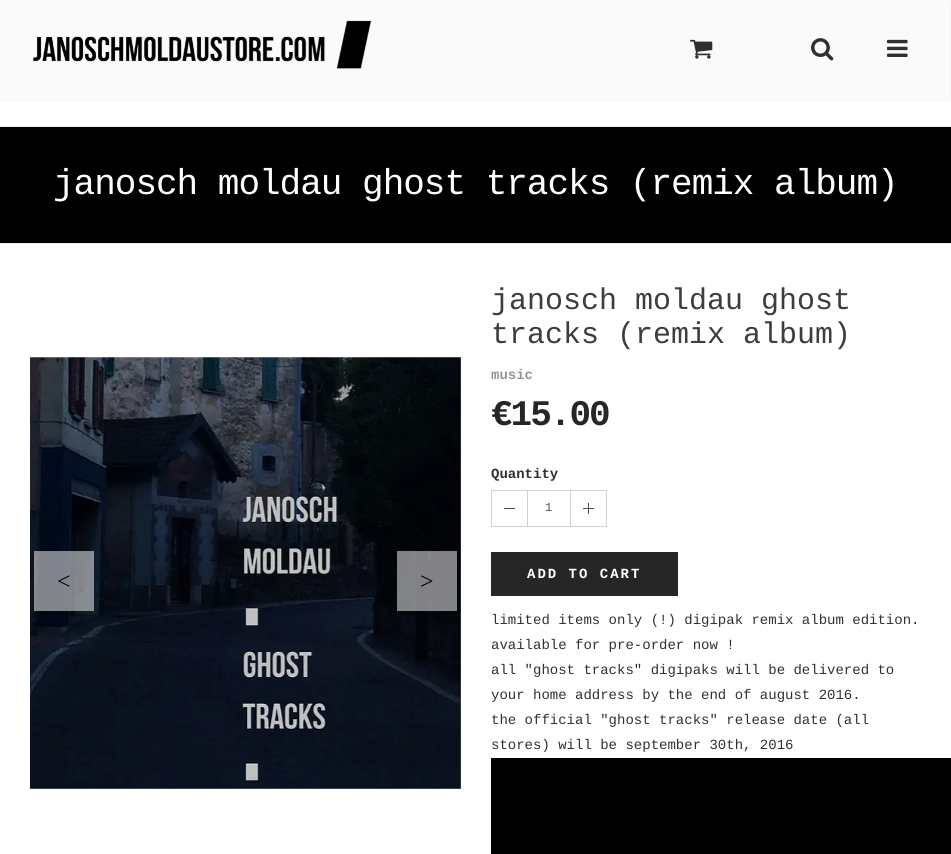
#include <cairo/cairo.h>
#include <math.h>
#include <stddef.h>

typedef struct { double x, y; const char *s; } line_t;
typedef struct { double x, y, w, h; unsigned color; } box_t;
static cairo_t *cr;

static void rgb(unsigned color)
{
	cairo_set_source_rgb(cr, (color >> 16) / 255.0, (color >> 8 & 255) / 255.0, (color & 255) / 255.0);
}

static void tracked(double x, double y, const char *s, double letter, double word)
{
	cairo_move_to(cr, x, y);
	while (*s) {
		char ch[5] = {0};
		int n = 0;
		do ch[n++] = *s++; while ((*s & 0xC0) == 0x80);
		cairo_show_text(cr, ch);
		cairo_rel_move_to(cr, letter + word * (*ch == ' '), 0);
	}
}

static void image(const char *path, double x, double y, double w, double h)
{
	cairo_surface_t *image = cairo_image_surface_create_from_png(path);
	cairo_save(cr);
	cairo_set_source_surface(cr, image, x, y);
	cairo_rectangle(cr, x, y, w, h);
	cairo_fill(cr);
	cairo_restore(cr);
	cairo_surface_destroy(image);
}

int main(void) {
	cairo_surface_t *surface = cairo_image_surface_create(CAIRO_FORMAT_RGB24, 951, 854);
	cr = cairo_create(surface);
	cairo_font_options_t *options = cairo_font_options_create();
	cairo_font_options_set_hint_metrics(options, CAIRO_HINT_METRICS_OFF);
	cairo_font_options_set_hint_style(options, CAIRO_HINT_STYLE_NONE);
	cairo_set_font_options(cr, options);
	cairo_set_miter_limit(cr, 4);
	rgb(0xffffff);
	cairo_paint(cr);
	rgb(0xfafafa);
	cairo_rectangle(cr, 0.5, 0.5, 950, 100);
	cairo_fill_preserve(cr);
	rgb(0xf7f7f7);
	cairo_set_line_width(cr, 1);
	cairo_stroke(cr);
	image("img/1.png", 33, 20, 339, 49);
	image("img/2.png", 690, 39, 23, 20);
	image("img/3.png", 811, 38, 23, 23);
	image("img/4.png", 887, 39, 21, 18);
	{
		static const box_t items[] = {
			{0, 127, 951, 116, 0x000000},
			{0, 126, 951, 1, 0xeeeeee},
			{0, 243, 951, 1, 0xeeeeee},
		};
		for (size_t i = 0; i < sizeof items / sizeof *items; i++) {
			rgb(items[i].color);
			cairo_rectangle(cr, items[i].x, items[i].y, items[i].w, items[i].h);
			cairo_fill(cr);
		}
	}
	image("img/5.png", 30, 357, 431, 432);
	cairo_set_source_rgba(cr, 1, 1, 1, 0.5);
	cairo_rectangle(cr, 34, 551, 60, 60);
	cairo_fill(cr);
	cairo_rectangle(cr, 397, 551, 60, 60);
	cairo_fill(cr);
	cairo_rectangle(cr, 491.5, 490.5, 36, 36);
	rgb(0xd1d1d1);
	cairo_stroke(cr);
	rgb(0x4d4d4d);
	cairo_rectangle(cr, 504, 508, 11, 1);
	cairo_fill(cr);
	cairo_rectangle(cr, 527.5, 490.5, 43, 36);
	rgb(0xd1d1d1);
	cairo_stroke(cr);
	cairo_rectangle(cr, 570.5, 490.5, 36, 36);
	cairo_stroke(cr);
	{
		static const box_t items[] = {
			{583, 508, 11, 1, 0x4d4d4d},
			{588, 503, 1, 11, 0x4d4d4d},
			{491, 552, 187, 44, 0x262626},
			{491, 758, 460, 96, 0x000000},
		};
		for (size_t i = 0; i < sizeof items / sizeof *items; i++) {
			rgb(items[i].color);
			cairo_rectangle(cr, items[i].x, items[i].y, items[i].w, items[i].h);
			cairo_fill(cr);
		}
	}
	cairo_select_font_face(cr, "Liberation Mono", CAIRO_FONT_SLANT_NORMAL, CAIRO_FONT_WEIGHT_NORMAL);
	cairo_set_font_size(cr, 36);
	rgb(0xffffff);
	tracked(53, 194, "janosch moldau ghost tracks (remix album)", -1, 0);
	cairo_select_font_face(cr, "Liberation Serif", CAIRO_FONT_SLANT_NORMAL, CAIRO_FONT_WEIGHT_NORMAL);
	cairo_set_font_size(cr, 24);
	rgb(0x000000);
	cairo_move_to(cr, 57, 589);
	cairo_show_text(cr, "<");
	cairo_move_to(cr, 420, 589);
	cairo_show_text(cr, ">");
	cairo_select_font_face(cr, "Liberation Mono", CAIRO_FONT_SLANT_NORMAL, CAIRO_FONT_WEIGHT_NORMAL);
	cairo_set_font_size(cr, 30);
	rgb(0x3d3d3d);
	cairo_move_to(cr, 491, 309);
	cairo_show_text(cr, "janosch moldau ghost");
	cairo_move_to(cr, 491, 343);
	cairo_show_text(cr, "tracks (remix album)");
	cairo_select_font_face(cr, "Liberation Mono", CAIRO_FONT_SLANT_NORMAL, CAIRO_FONT_WEIGHT_BOLD);
	cairo_set_font_size(cr, 14);
	rgb(0x949494);
	cairo_move_to(cr, 491, 379);
	cairo_show_text(cr, "music");
	cairo_set_font_size(cr, 36);
	rgb(0x262626);
	tracked(491, 425, "€15.00", -2, 0);
	cairo_set_font_size(cr, 14);
	rgb(0x313131);
	cairo_move_to(cr, 491, 478);
	cairo_show_text(cr, "Quantity");
	cairo_select_font_face(cr, "Liberation Mono", CAIRO_FONT_SLANT_NORMAL, CAIRO_FONT_WEIGHT_NORMAL);
	cairo_set_font_size(cr, 12);
	rgb(0x4c4c4c);
	cairo_move_to(cr, 545, 511);
	cairo_show_text(cr, "1");
	cairo_select_font_face(cr, "Liberation Mono", CAIRO_FONT_SLANT_NORMAL, CAIRO_FONT_WEIGHT_BOLD);
	cairo_set_font_size(cr, 14);
	rgb(0xffffff);
	tracked(527, 578, "ADD TO CART", 2, 0);
	cairo_select_font_face(cr, "Liberation Mono", CAIRO_FONT_SLANT_NORMAL, CAIRO_FONT_WEIGHT_NORMAL);
	rgb(0x313131);
	{
		static const line_t items[] = {
			{491, 624, "limited items only (!) digipak remix album edition."},
			{491, 649, "available for pre-order now !"},
			{491, 674, "all \"ghost tracks\" digipaks will be delivered to"},
			{491, 699, "your home address by the end of august 2016."},
			{491, 724, "the official \"ghost tracks\" release date (all"},
			{491, 749, "stores) will be september 30th, 2016"},
		};
		for (size_t i = 0; i < sizeof items / sizeof *items; i++) {
			cairo_move_to(cr, items[i].x, items[i].y);
			cairo_show_text(cr, items[i].s);
		}
	}
	cairo_surface_write_to_png(surface, "page.png");
	cairo_font_options_destroy(options);
	cairo_destroy(cr);
	cairo_surface_destroy(surface);
	return 0;
}
